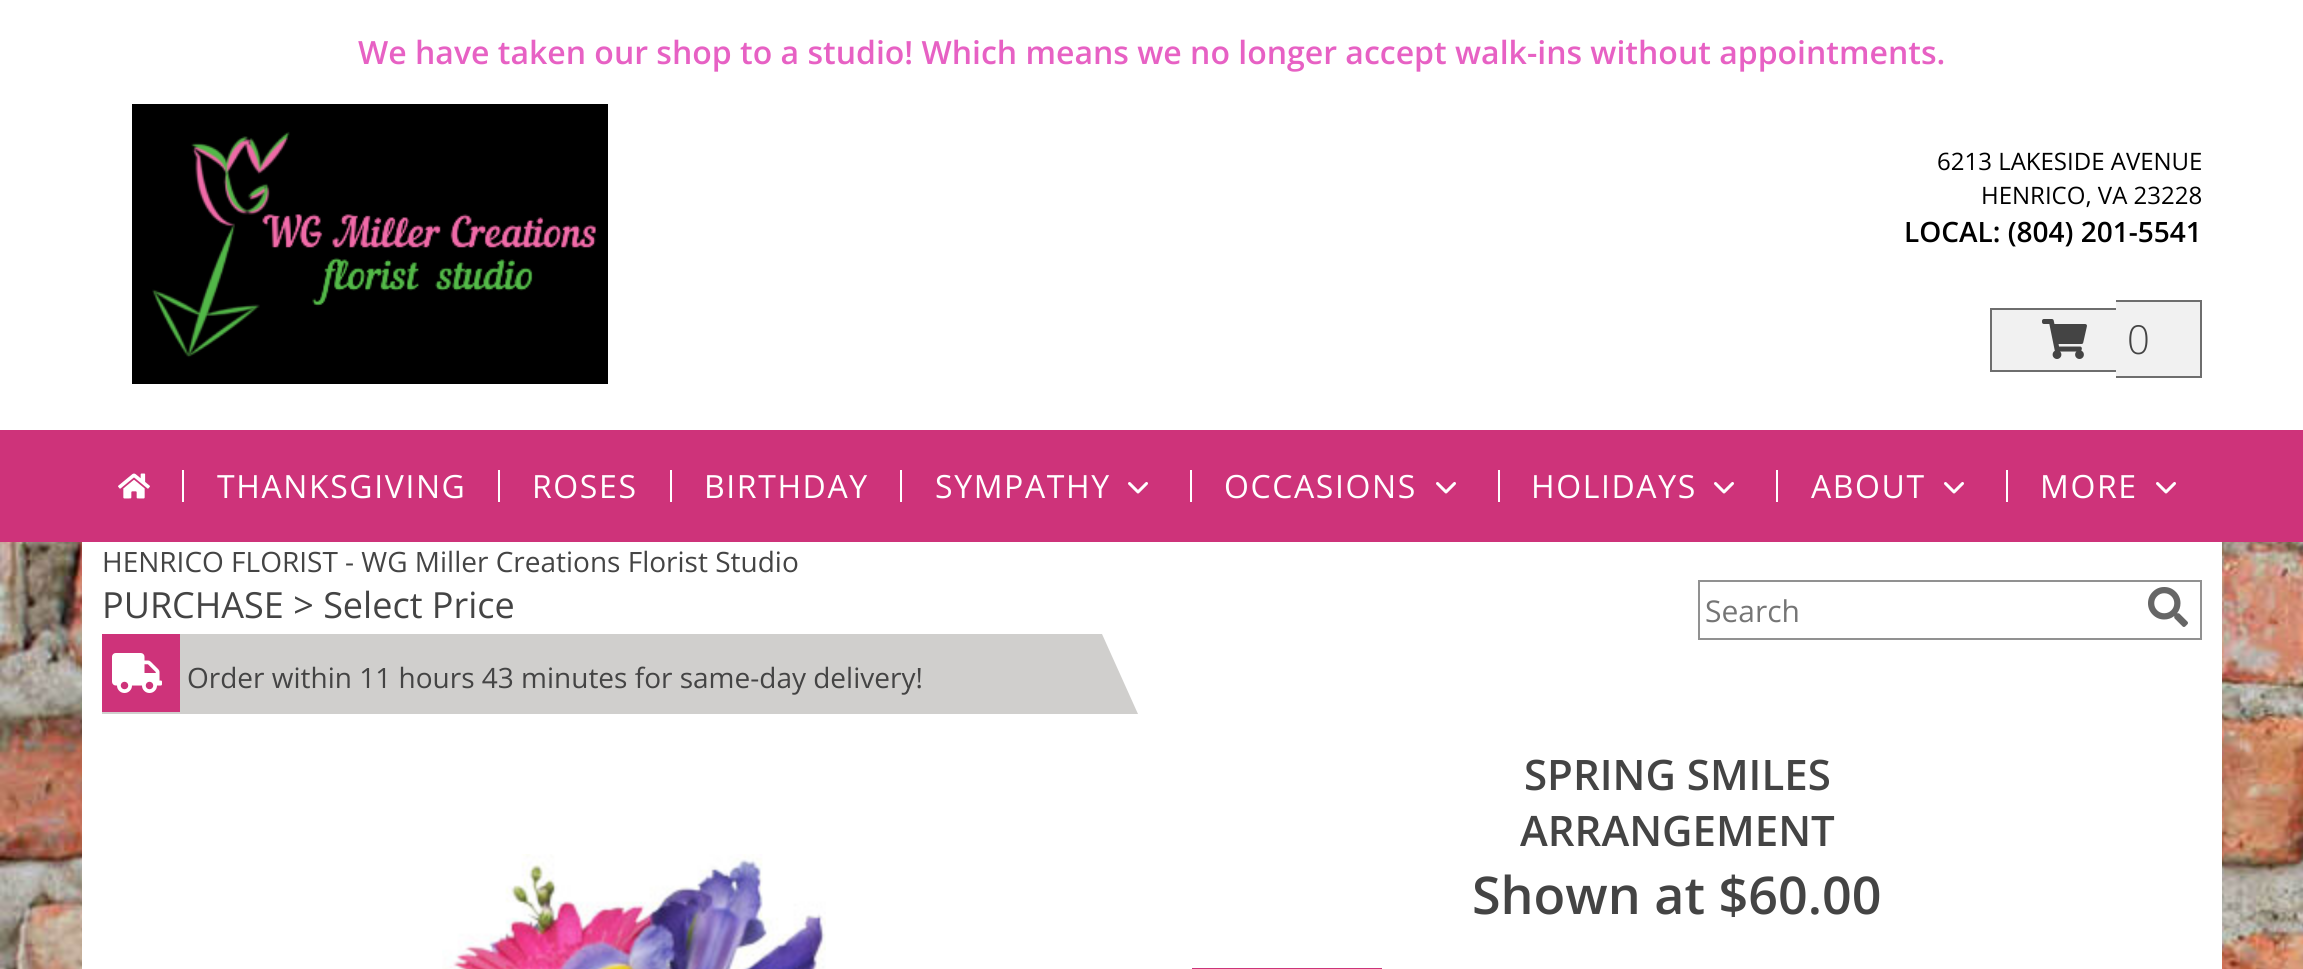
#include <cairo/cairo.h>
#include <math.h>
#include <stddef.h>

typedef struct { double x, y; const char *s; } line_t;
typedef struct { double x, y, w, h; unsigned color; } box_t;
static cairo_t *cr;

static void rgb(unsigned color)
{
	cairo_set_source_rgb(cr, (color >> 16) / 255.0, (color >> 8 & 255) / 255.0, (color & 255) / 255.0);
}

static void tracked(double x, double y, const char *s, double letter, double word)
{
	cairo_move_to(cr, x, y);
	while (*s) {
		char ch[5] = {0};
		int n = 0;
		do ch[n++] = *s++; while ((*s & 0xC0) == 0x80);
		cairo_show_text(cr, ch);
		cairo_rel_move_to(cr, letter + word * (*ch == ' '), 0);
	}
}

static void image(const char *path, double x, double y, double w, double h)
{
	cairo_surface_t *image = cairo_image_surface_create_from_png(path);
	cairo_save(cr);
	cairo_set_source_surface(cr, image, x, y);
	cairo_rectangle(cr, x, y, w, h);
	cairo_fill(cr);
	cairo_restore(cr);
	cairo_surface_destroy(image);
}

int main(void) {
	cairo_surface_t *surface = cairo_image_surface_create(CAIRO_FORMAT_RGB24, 2303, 969);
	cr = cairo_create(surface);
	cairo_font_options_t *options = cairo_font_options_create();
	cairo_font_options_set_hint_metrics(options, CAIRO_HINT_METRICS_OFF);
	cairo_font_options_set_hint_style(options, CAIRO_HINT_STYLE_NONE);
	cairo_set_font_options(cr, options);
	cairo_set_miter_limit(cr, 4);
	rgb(0xffffff);
	cairo_paint(cr);
	image("img/1.png", 0, 542, 2303, 427);
	rgb(0xffffff);
	cairo_rectangle(cr, 82, 542, 2140, 427);
	cairo_fill(cr);
	image("img/2.png", 132, 104, 476, 280);
	{
		static const box_t items[] = {
			{1992, 310, 124, 60, 0xf1f1f1},
			{1990, 308, 126, 2, 0x6e6e6e},
			{1990, 370, 126, 2, 0x6e6e6e},
			{1990, 308, 2, 64, 0x6e6e6e},
			{2116, 302, 84, 74, 0xf1f1f1},
			{2116, 300, 86, 2, 0x6e6e6e},
			{2116, 376, 12, 2, 0x6e6e6e},
			{2200, 300, 2, 78, 0x6e6e6e},
			{2128, 376, 74, 2, 0x6e6e6e},
		};
		for (size_t i = 0; i < sizeof items / sizeof *items; i++) {
			rgb(items[i].color);
			cairo_rectangle(cr, items[i].x, items[i].y, items[i].w, items[i].h);
			cairo_fill(cr);
		}
	}
	image("img/3.png", 2042, 319, 45, 40);
	rgb(0xce337a);
	cairo_rectangle(cr, 0, 430, 2303, 112);
	cairo_fill(cr);
	image("img/4.png", 118, 473, 32, 26);
	{
		static const box_t items[] = {
			{182, 470, 2, 32, 0xffffff},
			{498, 470, 2, 32, 0xffffff},
			{670, 470, 2, 32, 0xffffff},
			{900, 470, 2, 32, 0xffffff},
		};
		for (size_t i = 0; i < sizeof items / sizeof *items; i++) {
			rgb(items[i].color);
			cairo_rectangle(cr, items[i].x, items[i].y, items[i].w, items[i].h);
			cairo_fill(cr);
		}
	}
	image("img/5.png", 1128, 482, 20, 12);
	cairo_rectangle(cr, 1190, 470, 2, 32);
	cairo_fill(cr);
	image("img/5.png", 1436, 482, 20, 12);
	cairo_rectangle(cr, 1498, 470, 2, 32);
	cairo_fill(cr);
	image("img/5.png", 1714, 482, 20, 12);
	cairo_rectangle(cr, 1776, 470, 2, 32);
	cairo_fill(cr);
	image("img/5.png", 1944, 482, 20, 12);
	cairo_rectangle(cr, 2006, 470, 2, 32);
	cairo_fill(cr);
	image("img/5.png", 2156, 482, 20, 12);
	cairo_rectangle(cr, 1699, 581, 502, 58);
	rgb(0x919191);
	cairo_stroke(cr);
	image("img/6.png", 2148, 587, 40, 40);
	rgb(0xd0cfcd);
	cairo_new_path(cr);
	cairo_move_to(cr, 1138, 714);
	cairo_line_to(cr, 102, 714);
	cairo_line_to(cr, 102, 634);
	cairo_line_to(cr, 1102, 634);
	cairo_close_path(cr);
	cairo_fill(cr);
	rgb(0xce337a);
	cairo_rectangle(cr, 102, 634, 78, 78);
	cairo_fill(cr);
	image("img/7.png", 112, 653, 50, 40);
	image("img/8.png", 442, 854, 384, 115);
	cairo_rectangle(cr, 1195, 971, 184, 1);
	cairo_set_line_width(cr, 6);
	cairo_stroke(cr);
	cairo_select_font_face(cr, "Open Sans SemiBold", CAIRO_FONT_SLANT_NORMAL, CAIRO_FONT_WEIGHT_NORMAL);
	cairo_set_font_size(cr, 32);
	rgb(0xe761c4);
	cairo_move_to(cr, 358, 64);
	cairo_show_text(cr, "We have taken our shop to a studio! Which means we no longer accept walk-ins without appointments.");
	cairo_select_font_face(cr, "Open Sans", CAIRO_FONT_SLANT_NORMAL, CAIRO_FONT_WEIGHT_NORMAL);
	cairo_set_font_size(cr, 24);
	rgb(0x000000);
	cairo_move_to(cr, 1937, 170);
	cairo_show_text(cr, "6213 LAKESIDE AVENUE");
	cairo_move_to(cr, 1981, 204);
	cairo_show_text(cr, "HENRICO, VA 23228");
	cairo_select_font_face(cr, "Open Sans SemiBold", CAIRO_FONT_SLANT_NORMAL, CAIRO_FONT_WEIGHT_NORMAL);
	cairo_set_font_size(cr, 28);
	cairo_move_to(cr, 1904, 242);
	cairo_show_text(cr, "LOCAL: (804) 201-5541");
	cairo_select_font_face(cr, "Open Sans Light", CAIRO_FONT_SLANT_NORMAL, CAIRO_FONT_WEIGHT_NORMAL);
	cairo_set_font_size(cr, 40);
	rgb(0x444444);
	cairo_move_to(cr, 2127, 354);
	cairo_show_text(cr, "0");
	cairo_select_font_face(cr, "Open Sans", CAIRO_FONT_SLANT_NORMAL, CAIRO_FONT_WEIGHT_NORMAL);
	cairo_set_font_size(cr, 32);
	rgb(0xffffff);
	{
		static const line_t items[] = {
			{217, 498, "THANKSGIVING"},
			{532, 498, "ROSES"},
			{704, 498, "BIRTHDAY"},
			{935, 498, "SYMPATHY"},
			{1224, 498, "OCCASIONS"},
			{1531, 498, "HOLIDAYS"},
			{1811, 498, "ABOUT"},
			{2040, 498, "MORE"},
		};
		for (size_t i = 0; i < sizeof items / sizeof *items; i++) {
			tracked(items[i].x, items[i].y, items[i].s, 1.6, 0);
		}
	}
	cairo_set_font_size(cr, 28);
	rgb(0x444444);
	cairo_move_to(cr, 102, 572);
	cairo_show_text(cr, "HENRICO FLORIST - WG Miller Creations Florist Studio");
	cairo_set_font_size(cr, 36);
	cairo_move_to(cr, 102, 618);
	cairo_show_text(cr, "PURCHASE > Select Price");
	cairo_set_font_size(cr, 30);
	rgb(0x757575);
	cairo_move_to(cr, 1705, 622);
	cairo_show_text(cr, "Search");
	cairo_set_font_size(cr, 28);
	rgb(0x444444);
	cairo_move_to(cr, 187, 688);
	cairo_show_text(cr, "Order within 11 hours 43 minutes for same-day delivery!");
	cairo_select_font_face(cr, "Open Sans SemiBold", CAIRO_FONT_SLANT_NORMAL, CAIRO_FONT_WEIGHT_NORMAL);
	cairo_set_font_size(cr, 42);
	cairo_move_to(cr, 1524, 790);
	cairo_show_text(cr, "SPRING SMILES");
	cairo_move_to(cr, 1520, 846);
	cairo_show_text(cr, "ARRANGEMENT");
	cairo_set_font_size(cr, 52);
	cairo_move_to(cr, 1472, 914);
	cairo_show_text(cr, "Shown at $60.00");
	cairo_surface_write_to_png(surface, "page.png");
	cairo_font_options_destroy(options);
	cairo_destroy(cr);
	cairo_surface_destroy(surface);
	return 0;
}
